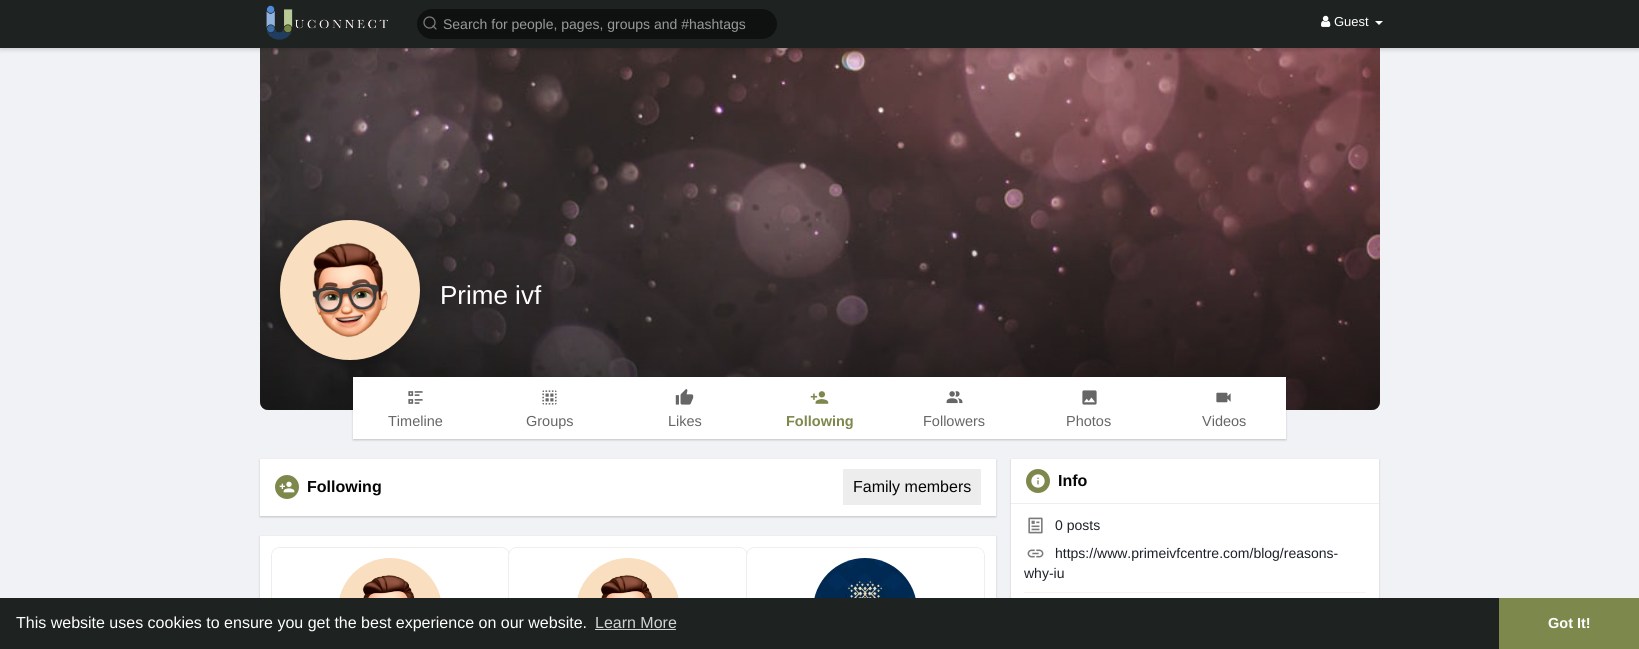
#include <cairo/cairo.h>
#include <math.h>
#include <stddef.h>

typedef struct { double x, y; const char *s; } line_t;
typedef struct { double x, y, w, h; unsigned color; } box_t;
static cairo_t *cr;

static void rgb(unsigned color)
{
	cairo_set_source_rgb(cr, (color >> 16) / 255.0, (color >> 8 & 255) / 255.0, (color & 255) / 255.0);
}

static void rrect(double x, double y, double w, double h, double r)
{
	cairo_new_sub_path(cr);
	cairo_arc(cr, x + w - r, y + h - r, r, 0, M_PI / 2);
	cairo_arc(cr, x + r, y + h - r, r, M_PI / 2, M_PI);
	cairo_arc(cr, x + r, y + r, r, M_PI, 1.5 * M_PI);
	cairo_arc(cr, x + w - r, y + r, r, 1.5 * M_PI, 2 * M_PI);
	cairo_close_path(cr);
}

static void soft_shadow(double x, double y, double w, double h, double r, double blur, double alpha)
{
	cairo_push_group_with_content(cr, CAIRO_CONTENT_ALPHA);
	cairo_set_operator(cr, CAIRO_OPERATOR_SOURCE);
	for (int i = 15; i >= -15 && fmin(w, h) + blur * i / 3 > 0; i -= 2) {
		double e = blur * i / 6;
		cairo_set_source_rgba(cr, 0, 0, 0, alpha * erfc((i - 1) / 8.5) / 2);
		rrect(x - e, y - e, w + 2 * e, h + 2 * e, fmax(0, fmin(r + e + blur * .6, fmin(w, h) / 2 + e)));
		cairo_fill(cr);
	}
	cairo_pattern_t *soft = cairo_pop_group(cr);
	cairo_mask(cr, soft);
	cairo_pattern_destroy(soft);
}

static void image(const char *path, double x, double y, double w, double h)
{
	cairo_surface_t *image = cairo_image_surface_create_from_png(path);
	cairo_save(cr);
	cairo_set_source_surface(cr, image, x, y);
	cairo_rectangle(cr, x, y, w, h);
	cairo_fill(cr);
	cairo_restore(cr);
	cairo_surface_destroy(image);
}

int main(void) {
	cairo_surface_t *surface = cairo_image_surface_create(CAIRO_FORMAT_RGB24, 1639, 649);
	cr = cairo_create(surface);
	cairo_font_options_t *options = cairo_font_options_create();
	cairo_font_options_set_hint_metrics(options, CAIRO_HINT_METRICS_OFF);
	cairo_font_options_set_hint_style(options, CAIRO_HINT_STYLE_NONE);
	cairo_set_font_options(cr, options);
	cairo_set_miter_limit(cr, 4);
	cairo_pattern_t *gradient;
	rgb(0xf0f2f5);
	cairo_paint(cr);
	rgb(0xffffff);
	cairo_new_path(cr);
	cairo_move_to(cr, 260, 45);
	cairo_line_to(cr, 1380, 45);
	cairo_line_to(cr, 1380, 402);
	cairo_curve_to(cr, 1380, 406.5, 1376.5, 410, 1372, 410);
	cairo_line_to(cr, 268, 410);
	cairo_curve_to(cr, 263.5, 410, 260, 406.5, 260, 402);
	cairo_close_path(cr);
	cairo_fill(cr);
	image("img/3.png", 260, 48, 1120, 362);
	rgb(0x000000);
	soft_shadow(0, 2, 1639, 48, 0, 2, 0.15);
	rgb(0x1e2321);
	cairo_rectangle(cr, 0, 0, 1639, 48);
	cairo_fill(cr);
	image("img/1.png", 266, 5, 122, 35);
	rgb(0x0f1110);
	rrect(417, 9, 360, 30, 15);
	cairo_fill(cr);
	cairo_arc(cr, 429.5, 22.5, 5.5, 0, 2 * M_PI);
	rgb(0x787878);
	cairo_set_line_width(cr, 1.3);
	cairo_stroke(cr);
	cairo_new_path(cr);
	cairo_move_to(cr, 436, 29);
	cairo_line_to(cr, 433, 26);
	cairo_set_line_cap(cr, CAIRO_LINE_CAP_ROUND);
	cairo_set_line_join(cr, CAIRO_LINE_JOIN_ROUND);
	cairo_stroke(cr);
	image("img/2.png", 1321, 15, 10, 12);
	rgb(0xffffff);
	cairo_new_path(cr);
	cairo_move_to(cr, 1375, 21);
	cairo_line_to(cr, 1383, 21);
	cairo_line_to(cr, 1379, 25);
	cairo_close_path(cr);
	cairo_fill(cr);
	gradient = cairo_pattern_create_linear(820, 210, 820, 410);
	cairo_pattern_add_color_stop_rgba(gradient, 0, 0, 0, 0, 0);
	cairo_pattern_add_color_stop_rgba(gradient, 1, 0, 0, 0, 0.45);
	cairo_set_source(cr, gradient);
	cairo_pattern_destroy(gradient);
	rrect(260, 210, 1120, 200, 8);
	cairo_fill(cr);
	rgb(0x000000);
	soft_shadow(353, 378, 933, 62, 0, 1, 0.2);
	rgb(0xffffff);
	cairo_rectangle(cr, 353, 377, 933, 62);
	cairo_fill(cr);
	rgb(0x000000);
	soft_shadow(280, 222, 140, 140, 70, 5, 0.15);
	image("img/4.png", 280, 220, 140, 140);
	image("img/5.png", 408, 391, 15, 13);
	image("img/6.png", 542, 390, 15, 15);
	image("img/7.png", 675, 388, 19, 17);
	image("img/8.png", 810, 391, 19, 13);
	image("img/9.png", 946, 391, 17, 13);
	image("img/10.png", 1082, 390, 15, 15);
	image("img/11.png", 1216, 392, 15, 11);
	soft_shadow(260, 460, 736, 57, 0, 1, 0.2);
	rgb(0xffffff);
	cairo_rectangle(cr, 260, 459, 736, 57);
	cairo_fill(cr);
	rgb(0x7c884c);
	cairo_arc(cr, 287, 487, 12, 0, 2 * M_PI);
	cairo_fill(cr);
	image("img/12.png", 279, 481, 16, 12);
	rgb(0xededed);
	cairo_rectangle(cr, 843, 469, 138, 36);
	cairo_fill(cr);
	rgb(0x000000);
	soft_shadow(260, 537, 736, 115, 0, 1, 0.2);
	rgb(0xffffff);
	cairo_rectangle(cr, 260, 536, 736, 62);
	cairo_fill(cr);
	rrect(271.5, 547.5, 238, 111, 8.5);
	rgb(0xededed);
	cairo_set_line_width(cr, 1);
	cairo_set_line_cap(cr, CAIRO_LINE_CAP_BUTT);
	cairo_set_line_join(cr, CAIRO_LINE_JOIN_MITER);
	cairo_stroke(cr);
	rgb(0xffffff);
	rrect(272, 548, 237, 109, 8);
	cairo_fill(cr);
	image("img/13.png", 339, 558, 102, 40);
	rrect(508.5, 547.5, 239, 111, 8.5);
	cairo_set_source_rgba(cr, 0, 0, 0, 0.07);
	cairo_stroke(cr);
	rgb(0xffffff);
	rrect(509, 548, 238, 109, 8);
	cairo_fill(cr);
	image("img/14.png", 577, 558, 102, 40);
	rrect(746.5, 547.5, 238, 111, 8.5);
	cairo_set_source_rgba(cr, 0, 0, 0, 0.07);
	cairo_stroke(cr);
	rgb(0xffffff);
	rrect(747, 548, 237, 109, 8);
	cairo_fill(cr);
	image("img/15.png", 814, 558, 102, 40);
	rgb(0x000000);
	soft_shadow(1011, 460, 368, 173, 0, 1, 0.2);
	rgb(0xffffff);
	cairo_rectangle(cr, 1011, 459, 368, 139);
	cairo_fill(cr);
	rgb(0xeeeeee);
	cairo_rectangle(cr, 1011, 503, 368, 1);
	cairo_fill(cr);
	rgb(0x7c884c);
	cairo_arc(cr, 1038, 481, 12, 0, 2 * M_PI);
	cairo_fill(cr);
	image("img/16.png", 1031, 474, 14, 14);
	image("img/17.png", 1028, 517, 15, 17);
	image("img/18.png", 1027, 549, 17, 9);
	{
		static const box_t items[] = {
			{1024, 592, 342, 1, 0xf4f4f4},
			{0, 598, 1499, 51, 0x1e2321},
			{595, 629, 81, 1, 0xd2d3d3},
			{1499, 598, 140, 51, 0x7c884c},
		};
		for (size_t i = 0; i < sizeof items / sizeof *items; i++) {
			rgb(items[i].color);
			cairo_rectangle(cr, items[i].x, items[i].y, items[i].w, items[i].h);
			cairo_fill(cr);
		}
	}
	cairo_select_font_face(cr, "Liberation Sans", CAIRO_FONT_SLANT_NORMAL, CAIRO_FONT_WEIGHT_NORMAL);
	cairo_set_font_size(cr, 14);
	rgb(0x999999);
	cairo_move_to(cr, 443, 29);
	cairo_show_text(cr, "Search for people, pages, groups and #hashtags");
	cairo_set_font_size(cr, 13);
	rgb(0xffffff);
	cairo_move_to(cr, 1334, 26);
	cairo_show_text(cr, "Guest");
	cairo_set_font_size(cr, 26);
	cairo_move_to(cr, 440, 304);
	cairo_show_text(cr, "Prime ivf");
	cairo_set_font_size(cr, 14.5);
	rgb(0x666666);
	{
		static const line_t items[] = {
			{388, 426, "Timeline"},
			{526, 426, "Groups"},
			{668, 426, "Likes"},
		};
		for (size_t i = 0; i < sizeof items / sizeof *items; i++) {
			cairo_move_to(cr, items[i].x, items[i].y);
			cairo_show_text(cr, items[i].s);
		}
	}
	cairo_select_font_face(cr, "Liberation Sans", CAIRO_FONT_SLANT_NORMAL, CAIRO_FONT_WEIGHT_BOLD);
	rgb(0x7c884c);
	cairo_move_to(cr, 786, 426);
	cairo_show_text(cr, "Following");
	cairo_select_font_face(cr, "Liberation Sans", CAIRO_FONT_SLANT_NORMAL, CAIRO_FONT_WEIGHT_NORMAL);
	rgb(0x666666);
	{
		static const line_t items[] = {
			{923, 426, "Followers"},
			{1066, 426, "Photos"},
			{1202, 426, "Videos"},
		};
		for (size_t i = 0; i < sizeof items / sizeof *items; i++) {
			cairo_move_to(cr, items[i].x, items[i].y);
			cairo_show_text(cr, items[i].s);
		}
	}
	cairo_select_font_face(cr, "Liberation Sans", CAIRO_FONT_SLANT_NORMAL, CAIRO_FONT_WEIGHT_BOLD);
	cairo_set_font_size(cr, 16);
	rgb(0x050505);
	cairo_move_to(cr, 307, 492);
	cairo_show_text(cr, "Following");
	cairo_select_font_face(cr, "Liberation Sans", CAIRO_FONT_SLANT_NORMAL, CAIRO_FONT_WEIGHT_NORMAL);
	cairo_move_to(cr, 853, 492);
	cairo_show_text(cr, "Family members");
	cairo_select_font_face(cr, "Liberation Sans", CAIRO_FONT_SLANT_NORMAL, CAIRO_FONT_WEIGHT_BOLD);
	cairo_move_to(cr, 1058, 486);
	cairo_show_text(cr, "Info");
	cairo_select_font_face(cr, "Liberation Sans", CAIRO_FONT_SLANT_NORMAL, CAIRO_FONT_WEIGHT_NORMAL);
	cairo_set_font_size(cr, 14);
	rgb(0x1d2129);
	{
		static const line_t items[] = {
			{1055, 530, "0 posts"},
			{1055, 558, "https://www.primeivfcentre.com/blog/reasons-"},
			{1024, 578, "why-iu"},
		};
		for (size_t i = 0; i < sizeof items / sizeof *items; i++) {
			cairo_move_to(cr, items[i].x, items[i].y);
			cairo_show_text(cr, items[i].s);
		}
	}
	cairo_set_font_size(cr, 16);
	rgb(0xffffff);
	cairo_move_to(cr, 16, 628);
	cairo_show_text(cr, "This website uses cookies to ensure you get the best experience on our website.");
	rgb(0xd2d3d3);
	cairo_move_to(cr, 595, 628);
	cairo_show_text(cr, "Learn More");
	cairo_select_font_face(cr, "Liberation Sans", CAIRO_FONT_SLANT_NORMAL, CAIRO_FONT_WEIGHT_BOLD);
	cairo_set_font_size(cr, 14.5);
	rgb(0xffffff);
	cairo_move_to(cr, 1548, 628);
	cairo_show_text(cr, "Got It!");
	cairo_surface_write_to_png(surface, "page.png");
	cairo_font_options_destroy(options);
	cairo_destroy(cr);
	cairo_surface_destroy(surface);
	return 0;
}
